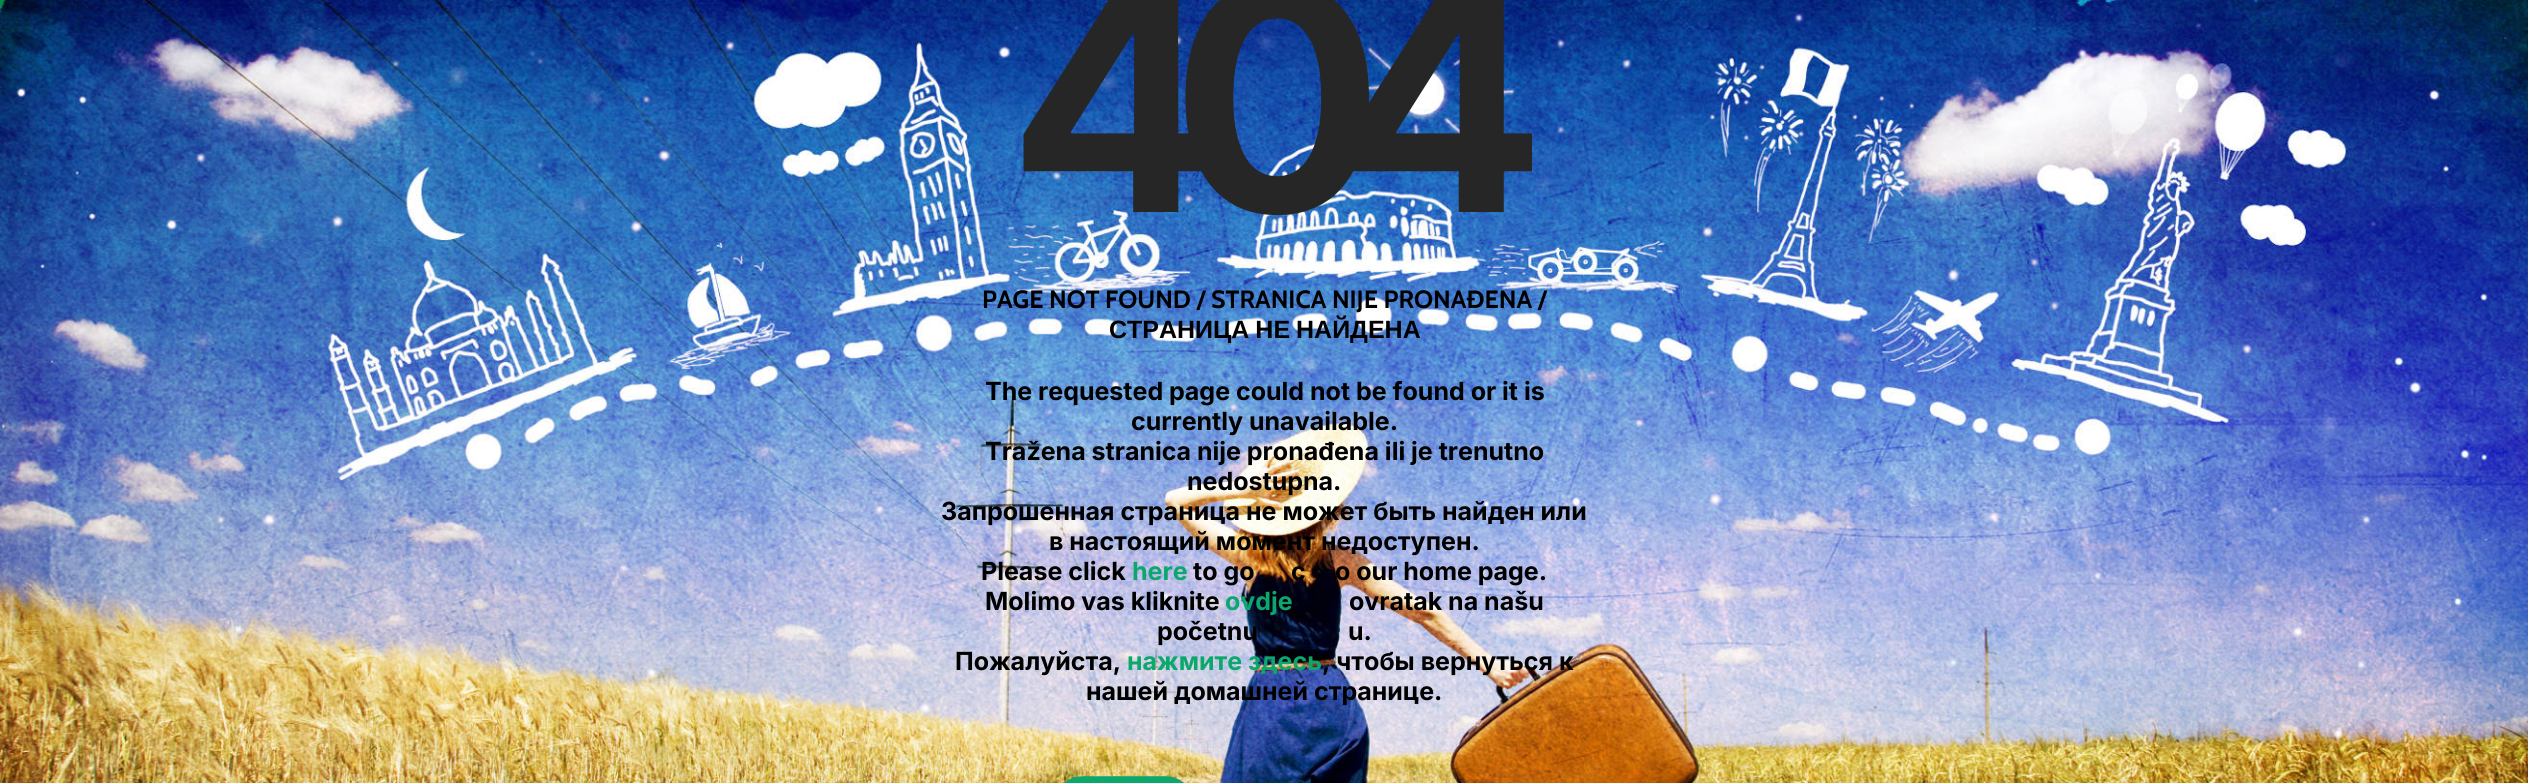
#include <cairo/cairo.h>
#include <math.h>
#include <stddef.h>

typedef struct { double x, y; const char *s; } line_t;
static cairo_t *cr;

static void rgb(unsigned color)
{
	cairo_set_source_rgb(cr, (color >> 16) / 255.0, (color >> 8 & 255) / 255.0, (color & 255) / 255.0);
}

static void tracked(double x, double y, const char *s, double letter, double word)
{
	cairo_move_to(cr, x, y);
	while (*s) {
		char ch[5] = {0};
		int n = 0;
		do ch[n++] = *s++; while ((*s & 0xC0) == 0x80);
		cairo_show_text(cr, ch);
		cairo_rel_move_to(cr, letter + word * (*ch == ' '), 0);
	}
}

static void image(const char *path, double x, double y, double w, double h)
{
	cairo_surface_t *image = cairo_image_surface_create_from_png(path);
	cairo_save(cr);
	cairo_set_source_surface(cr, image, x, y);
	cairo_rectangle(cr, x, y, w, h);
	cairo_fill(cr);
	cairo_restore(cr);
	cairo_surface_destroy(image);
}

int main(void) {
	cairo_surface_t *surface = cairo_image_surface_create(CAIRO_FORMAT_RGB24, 2528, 783);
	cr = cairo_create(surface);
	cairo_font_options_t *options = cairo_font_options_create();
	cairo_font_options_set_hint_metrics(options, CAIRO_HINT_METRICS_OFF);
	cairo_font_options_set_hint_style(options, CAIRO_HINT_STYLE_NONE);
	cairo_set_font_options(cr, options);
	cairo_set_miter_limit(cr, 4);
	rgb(0xffffff);
	cairo_paint(cr);
	image("img/1.png", 0, 0, 2528, 783);
	image("img/2.png", 1064, 776, 120, 7);
	cairo_select_font_face(cr, "Inter", CAIRO_FONT_SLANT_NORMAL, CAIRO_FONT_WEIGHT_BOLD);
	cairo_set_font_size(cr, 315);
	rgb(0x262626);
	tracked(1008, 212, "404", -50, 0);
	cairo_select_font_face(cr, "Cabin", CAIRO_FONT_SLANT_NORMAL, CAIRO_FONT_WEIGHT_BOLD);
	cairo_set_font_size(cr, 25);
	rgb(0x000000);
	cairo_move_to(cr, 982, 308);
	cairo_show_text(cr, "PAGE NOT FOUND / STRANICA NIJE PRONAĐENA /");
	cairo_select_font_face(cr, "Liberation Sans", CAIRO_FONT_SLANT_NORMAL, CAIRO_FONT_WEIGHT_BOLD);
	tracked(1109, 338, "СТРАНИЦА НЕ НАЙДЕНА", 0, -1);
	cairo_select_font_face(cr, "Inter", CAIRO_FONT_SLANT_NORMAL, CAIRO_FONT_WEIGHT_BOLD);
	{
		static const line_t items[] = {
			{985, 400, "The requested page could not be found or it is"},
			{1131, 430, "currently unavailable."},
			{985, 460, "Tražena stranica nije pronađena ili je trenutno"},
			{1187, 490, "nedostupna."},
			{941, 520, "Запрошенная страница не может быть найден или"},
			{1049, 550, "в настоящий момент недоступен."},
			{981, 580, "Please click"},
		};
		for (size_t i = 0; i < sizeof items / sizeof *items; i++) {
			cairo_move_to(cr, items[i].x, items[i].y);
			cairo_show_text(cr, items[i].s);
		}
	}
	rgb(0x0ba76c);
	cairo_move_to(cr, 1132, 580);
	cairo_show_text(cr, "here");
	rgb(0x000000);
	{
		static const line_t items[] = {
			{1193, 580, "to go"},
			{1291, 580, "c"},
			{1335, 580, "o our home page."},
			{985, 610, "Molimo vas kliknite"},
		};
		for (size_t i = 0; i < sizeof items / sizeof *items; i++) {
			cairo_move_to(cr, items[i].x, items[i].y);
			cairo_show_text(cr, items[i].s);
		}
	}
	rgb(0x0ba76c);
	cairo_move_to(cr, 1225, 610);
	cairo_show_text(cr, "ovdje");
	rgb(0x000000);
	{
		static const line_t items[] = {
			{1349, 610, "ovratak na našu"},
			{1157, 640, "početnu"},
			{1348, 640, "u."},
			{955, 670, "Пожалуйста,"},
		};
		for (size_t i = 0; i < sizeof items / sizeof *items; i++) {
			cairo_move_to(cr, items[i].x, items[i].y);
			cairo_show_text(cr, items[i].s);
		}
	}
	rgb(0x0ba76c);
	cairo_move_to(cr, 1127, 670);
	cairo_show_text(cr, "нажмите здесь");
	rgb(0x000000);
	cairo_move_to(cr, 1322, 670);
	cairo_show_text(cr, ", чтобы вернуться к");
	cairo_move_to(cr, 1086, 700);
	cairo_show_text(cr, "нашей домашней странице.");
	cairo_surface_write_to_png(surface, "page.png");
	cairo_font_options_destroy(options);
	cairo_destroy(cr);
	cairo_surface_destroy(surface);
	return 0;
}
